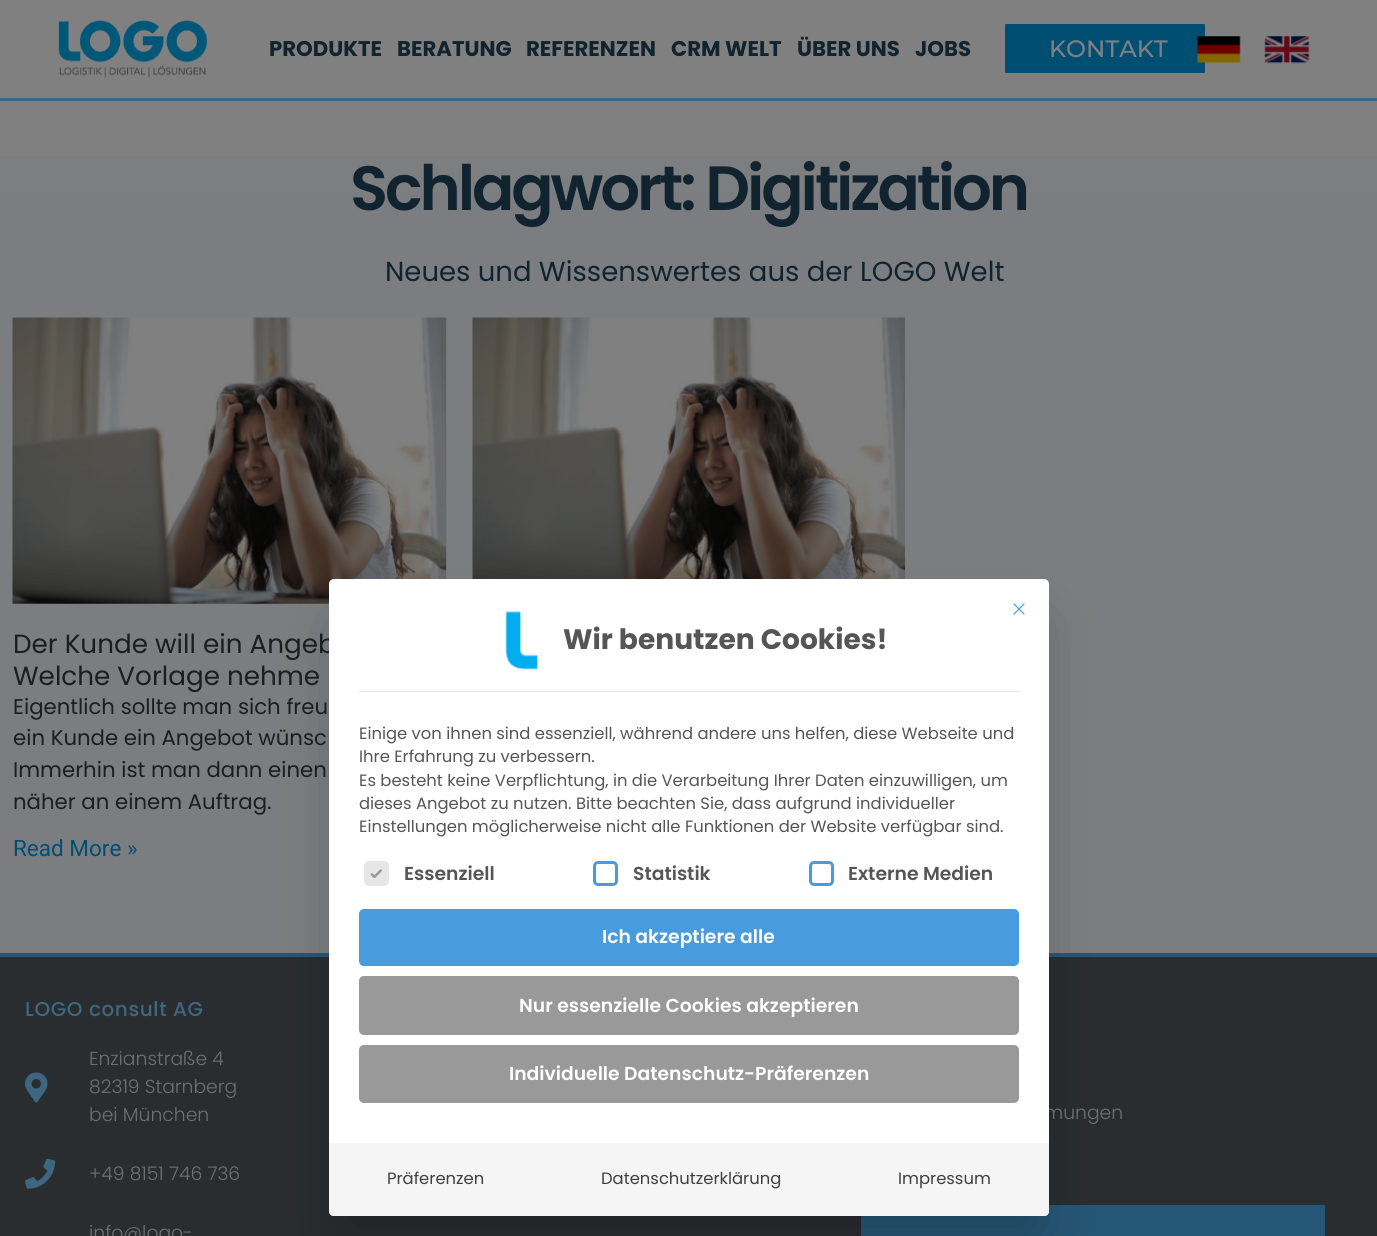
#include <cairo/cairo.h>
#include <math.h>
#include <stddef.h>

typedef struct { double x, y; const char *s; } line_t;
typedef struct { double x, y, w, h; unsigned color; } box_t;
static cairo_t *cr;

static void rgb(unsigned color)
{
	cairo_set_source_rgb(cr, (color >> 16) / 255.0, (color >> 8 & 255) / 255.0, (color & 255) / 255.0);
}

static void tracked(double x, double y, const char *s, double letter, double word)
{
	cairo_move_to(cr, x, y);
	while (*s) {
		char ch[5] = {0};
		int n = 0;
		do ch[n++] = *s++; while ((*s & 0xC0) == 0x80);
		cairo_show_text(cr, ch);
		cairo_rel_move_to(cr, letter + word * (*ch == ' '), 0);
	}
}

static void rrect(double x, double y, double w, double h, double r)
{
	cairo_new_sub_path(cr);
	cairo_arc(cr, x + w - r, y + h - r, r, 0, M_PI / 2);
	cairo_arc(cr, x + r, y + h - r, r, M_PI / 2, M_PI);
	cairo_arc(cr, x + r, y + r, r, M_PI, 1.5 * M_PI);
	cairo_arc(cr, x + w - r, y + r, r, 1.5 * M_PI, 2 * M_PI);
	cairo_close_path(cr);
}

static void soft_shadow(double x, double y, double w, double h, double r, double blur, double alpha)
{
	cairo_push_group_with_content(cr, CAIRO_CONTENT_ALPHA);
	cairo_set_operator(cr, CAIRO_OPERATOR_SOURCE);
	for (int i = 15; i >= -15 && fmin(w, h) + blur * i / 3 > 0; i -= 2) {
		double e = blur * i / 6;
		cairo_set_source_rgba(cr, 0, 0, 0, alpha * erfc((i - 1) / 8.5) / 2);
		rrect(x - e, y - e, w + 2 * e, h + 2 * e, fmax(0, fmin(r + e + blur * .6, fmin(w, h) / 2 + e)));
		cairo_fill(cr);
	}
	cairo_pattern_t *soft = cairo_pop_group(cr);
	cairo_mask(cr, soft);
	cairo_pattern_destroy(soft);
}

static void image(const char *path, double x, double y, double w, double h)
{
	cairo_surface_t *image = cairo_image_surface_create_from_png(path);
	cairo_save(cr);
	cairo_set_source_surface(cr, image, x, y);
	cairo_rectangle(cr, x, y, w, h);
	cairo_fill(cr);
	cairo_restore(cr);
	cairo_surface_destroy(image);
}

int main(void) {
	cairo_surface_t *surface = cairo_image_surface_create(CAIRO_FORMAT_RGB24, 1377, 1236);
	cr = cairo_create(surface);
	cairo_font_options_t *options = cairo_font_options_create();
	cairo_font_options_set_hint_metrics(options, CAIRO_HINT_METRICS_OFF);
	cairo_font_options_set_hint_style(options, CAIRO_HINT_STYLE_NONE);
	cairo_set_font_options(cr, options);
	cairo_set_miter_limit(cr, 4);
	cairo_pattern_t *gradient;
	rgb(0x808080);
	cairo_paint(cr);
	rgb(0x3d687b);
	cairo_rectangle(cr, 0, 98, 1377, 3);
	cairo_fill(cr);
	image("img/1.png", 58, 20, 150, 58);
	rgb(0x004f72);
	rrect(1005, 24, 200, 49, 1);
	cairo_fill(cr);
	image("img/2.png", 1197, 36, 44, 28);
	image("img/3.png", 1264, 36, 46, 28);
	gradient = cairo_pattern_create_linear(689, 101, 689, 953);
	cairo_pattern_add_color_stop_rgba(gradient, 0, 0.502, 0.502, 0.502, 1);
	cairo_pattern_add_color_stop_rgba(gradient, 0.13, 0.482, 0.49, 0.502, 1);
	cairo_set_source(cr, gradient);
	cairo_pattern_destroy(gradient);
	cairo_rectangle(cr, 0, 156, 1377, 797);
	cairo_fill(cr);
	image("img/4.png", 472, 317, 433, 262);
	image("img/5.png", 12, 317, 435, 287);
	{
		static const box_t items[] = {
			{0, 957, 1377, 279, 0x2a2d30},
			{0, 953, 1377, 4, 0x265675},
			{861, 1205, 464, 31, 0x265675},
		};
		for (size_t i = 0; i < sizeof items / sizeof *items; i++) {
			rgb(items[i].color);
			cairo_rectangle(cr, items[i].x, items[i].y, items[i].w, items[i].h);
			cairo_fill(cr);
		}
	}
	rgb(0x000000);
	soft_shadow(344, 625, 690, 608, 0, 31, 0.25);
	image("img/8.png", 25, 1072, 23, 31);
	image("img/9.png", 25, 1158, 31, 31);
	cairo_select_font_face(cr, "Poppins", CAIRO_FONT_SLANT_NORMAL, CAIRO_FONT_WEIGHT_BOLD);
	cairo_set_font_size(cr, 21.25);
	rgb(0x11232f);
	{
		static const line_t items[] = {
			{269, 56, "PRODUKTE"},
			{397, 56, "BERATUNG"},
			{526, 56, "REFERENZEN"},
			{671, 56, "CRM WELT"},
			{797, 56, "ÜBER UNS"},
			{915, 56, "JOBS"},
		};
		for (size_t i = 0; i < sizeof items / sizeof *items; i++) {
			cairo_move_to(cr, items[i].x, items[i].y);
			cairo_show_text(cr, items[i].s);
		}
	}
	cairo_select_font_face(cr, "Montserrat Medium", CAIRO_FONT_SLANT_NORMAL, CAIRO_FONT_WEIGHT_NORMAL);
	cairo_set_font_size(cr, 23.75);
	rgb(0x808080);
	cairo_move_to(cr, 1049, 57);
	cairo_show_text(cr, "KONTAKT");
	cairo_select_font_face(cr, "Poppins SemiBold", CAIRO_FONT_SLANT_NORMAL, CAIRO_FONT_WEIGHT_NORMAL);
	cairo_set_font_size(cr, 62.5);
	rgb(0x11232f);
	tracked(350, 210, "Schlagwort: Digitization", -3.1, 0);
	cairo_select_font_face(cr, "Poppins", CAIRO_FONT_SLANT_NORMAL, CAIRO_FONT_WEIGHT_NORMAL);
	cairo_set_font_size(cr, 27.5);
	cairo_move_to(cr, 385, 281);
	cairo_show_text(cr, "Neues und Wissenswertes aus der LOGO Welt");
	cairo_set_font_size(cr, 26.25);
	rgb(0x1c1d1d);
	cairo_move_to(cr, 13, 653);
	cairo_show_text(cr, "Der Kunde will ein Angeb");
	cairo_move_to(cr, 13, 685);
	cairo_show_text(cr, "Welche Vorlage nehme");
	cairo_set_font_size(cr, 21.25);
	{
		static const line_t items[] = {
			{13, 714, "Eigentlich sollte man sich freu"},
			{13, 745, "ein Kunde ein Angebot wünsc"},
			{13, 777, "Immerhin ist man dann einen"},
			{13, 809, "näher an einem Auftrag."},
		};
		for (size_t i = 0; i < sizeof items / sizeof *items; i++) {
			cairo_move_to(cr, items[i].x, items[i].y);
			cairo_show_text(cr, items[i].s);
		}
	}
	cairo_select_font_face(cr, "Roboto", CAIRO_FONT_SLANT_NORMAL, CAIRO_FONT_WEIGHT_NORMAL);
	cairo_set_font_size(cr, 22.5);
	rgb(0x004f72);
	cairo_move_to(cr, 13, 856);
	cairo_show_text(cr, "Read More »");
	cairo_select_font_face(cr, "Poppins Medium", CAIRO_FONT_SLANT_NORMAL, CAIRO_FONT_WEIGHT_NORMAL);
	cairo_set_font_size(cr, 20);
	rgb(0x3f6780);
	tracked(25, 1016, "LOGO consult AG", 0.6, 0);
	cairo_select_font_face(cr, "Poppins Light", CAIRO_FONT_SLANT_NORMAL, CAIRO_FONT_WEIGHT_NORMAL);
	cairo_set_font_size(cr, 18.75);
	rgb(0x6f6f70);
	{
		static const line_t items[] = {
			{89, 1065, "Enzianstraße 4"},
			{89, 1093, "82319 Starnberg"},
			{89, 1121, "bei München"},
			{89, 1180, "+49 8151 746 736"},
			{89, 1239, "info@logo-"},
			{1044, 1119, "mungen"},
		};
		for (size_t i = 0; i < sizeof items / sizeof *items; i++) {
			cairo_move_to(cr, items[i].x, items[i].y);
			cairo_show_text(cr, items[i].s);
		}
	}
	rgb(0xffffff);
	rrect(329, 579, 720, 637, 5);
	cairo_fill(cr);
	cairo_new_path(cr);
	cairo_move_to(cr, 1014, 614);
	cairo_line_to(cr, 1024, 604);
	cairo_move_to(cr, 1014, 604);
	cairo_line_to(cr, 1024, 614);
	rgb(0x489cdd);
	cairo_set_line_width(cr, 1.2);
	cairo_set_line_cap(cr, CAIRO_LINE_CAP_ROUND);
	cairo_set_line_join(cr, CAIRO_LINE_JOIN_ROUND);
	cairo_stroke(cr);
	cairo_select_font_face(cr, "Poppins SemiBold", CAIRO_FONT_SLANT_NORMAL, CAIRO_FONT_WEIGHT_NORMAL);
	rgb(0x555555);
	cairo_move_to(cr, 848, 880);
	cairo_show_text(cr, "Externe Medien");
	rrect(810.5, 862.5, 22, 22, 3.5);
	rgb(0x489cdd);
	cairo_set_line_width(cr, 3);
	cairo_set_line_cap(cr, CAIRO_LINE_CAP_BUTT);
	cairo_set_line_join(cr, CAIRO_LINE_JOIN_MITER);
	cairo_stroke(cr);
	rgb(0x555555);
	cairo_move_to(cr, 633, 880);
	cairo_show_text(cr, "Statistik");
	rrect(594.5, 862.5, 22, 22, 3.5);
	rgb(0x489cdd);
	cairo_stroke(cr);
	rgb(0xe6e6e6);
	rrect(365.5, 862.5, 22, 22, 3.5);
	cairo_fill_preserve(cr);
	cairo_stroke(cr);
	image("img/7.png", 370, 869, 12, 10);
	rgb(0x555555);
	cairo_move_to(cr, 404, 880);
	cairo_show_text(cr, "Essenziell");
	rgb(0x999999);
	rrect(359, 1045, 660, 58, 5);
	cairo_fill(cr);
	rgb(0xffffff);
	cairo_move_to(cr, 509, 1080);
	cairo_show_text(cr, "Individuelle Datenschutz-Präferenzen");
	rgb(0x999999);
	rrect(359, 976, 660, 59, 5);
	cairo_fill(cr);
	rgb(0xffffff);
	cairo_move_to(cr, 519, 1012);
	cairo_show_text(cr, "Nur essenzielle Cookies akzeptieren");
	rgb(0x489cdd);
	rrect(359, 909, 660, 57, 5);
	cairo_fill(cr);
	rgb(0xffffff);
	cairo_move_to(cr, 602, 943);
	cairo_show_text(cr, "Ich akzeptiere alle");
	cairo_select_font_face(cr, "Poppins", CAIRO_FONT_SLANT_NORMAL, CAIRO_FONT_WEIGHT_NORMAL);
	cairo_set_font_size(cr, 16.4);
	rgb(0x555555);
	{
		static const line_t items[] = {
			{359, 832, "Einstellungen möglicherweise nicht alle Funktionen der Website verfügbar sind."},
			{359, 809, "dieses Angebot zu nutzen. Bitte beachten Sie, dass aufgrund individueller"},
			{359, 786, "Es besteht keine Verpflichtung, in die Verarbeitung Ihrer Daten einzuwilligen, um"},
			{359, 762, "Ihre Erfahrung zu verbessern."},
			{359, 739, "Einige von ihnen sind essenziell, während andere uns helfen, diese Webseite und"},
		};
		for (size_t i = 0; i < sizeof items / sizeof *items; i++) {
			cairo_move_to(cr, items[i].x, items[i].y);
			cairo_show_text(cr, items[i].s);
		}
	}
	cairo_select_font_face(cr, "Poppins", CAIRO_FONT_SLANT_NORMAL, CAIRO_FONT_WEIGHT_BOLD);
	cairo_set_font_size(cr, 28.1);
	cairo_move_to(cr, 563, 649);
	cairo_show_text(cr, "Wir benutzen Cookies!");
	image("img/6.png", 505, 611, 33, 59);
	rgb(0xe5e5e5);
	cairo_rectangle(cr, 359, 691, 660, 1);
	cairo_fill(cr);
	rgb(0xf5f5f5);
	cairo_new_path(cr);
	cairo_move_to(cr, 329, 1143);
	cairo_line_to(cr, 1049, 1143);
	cairo_line_to(cr, 1049, 1211);
	cairo_curve_to(cr, 1049, 1214, 1047, 1216, 1044, 1216);
	cairo_line_to(cr, 334, 1216);
	cairo_curve_to(cr, 331, 1216, 329, 1214, 329, 1211);
	cairo_close_path(cr);
	cairo_fill(cr);
	cairo_select_font_face(cr, "Poppins", CAIRO_FONT_SLANT_NORMAL, CAIRO_FONT_WEIGHT_NORMAL);
	cairo_set_font_size(cr, 16.4);
	rgb(0x404040);
	{
		static const line_t items[] = {
			{898, 1184, "Impressum"},
			{601, 1184, "Datenschutzerklärung"},
			{387, 1184, "Präferenzen"},
		};
		for (size_t i = 0; i < sizeof items / sizeof *items; i++) {
			cairo_move_to(cr, items[i].x, items[i].y);
			cairo_show_text(cr, items[i].s);
		}
	}
	cairo_surface_write_to_png(surface, "page.png");
	cairo_font_options_destroy(options);
	cairo_destroy(cr);
	cairo_surface_destroy(surface);
	return 0;
}
